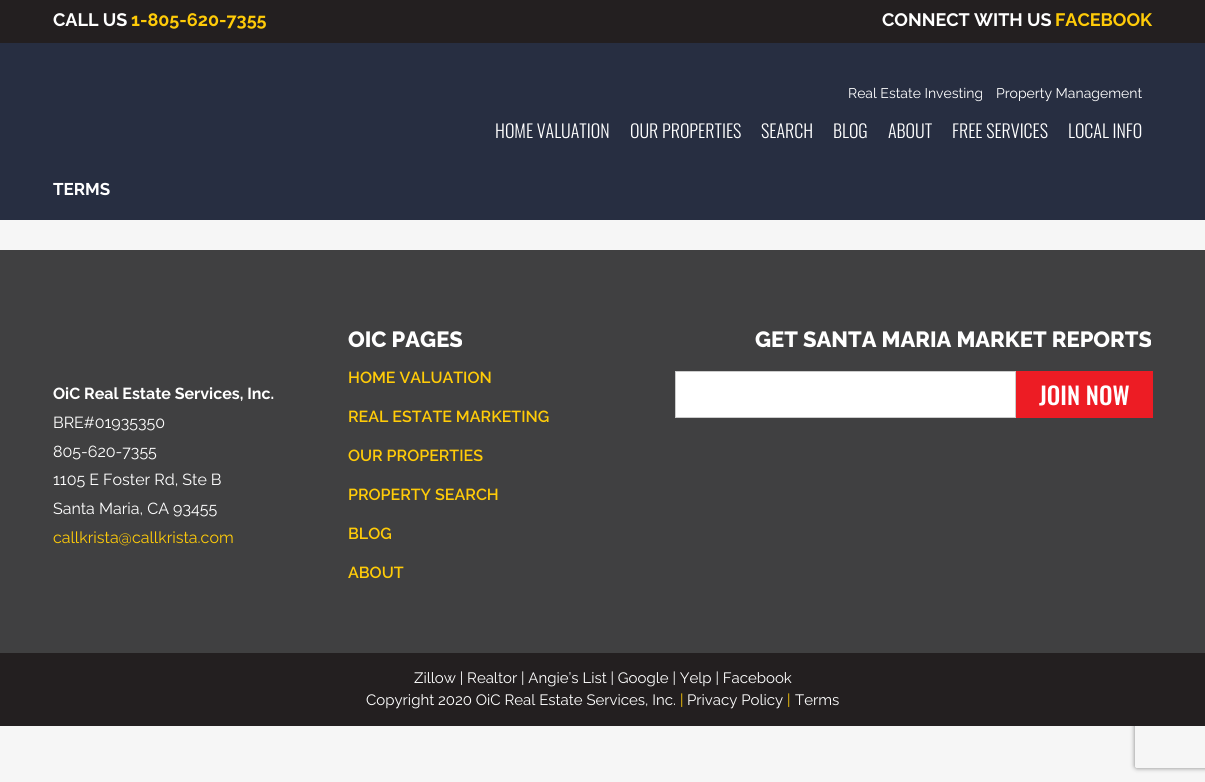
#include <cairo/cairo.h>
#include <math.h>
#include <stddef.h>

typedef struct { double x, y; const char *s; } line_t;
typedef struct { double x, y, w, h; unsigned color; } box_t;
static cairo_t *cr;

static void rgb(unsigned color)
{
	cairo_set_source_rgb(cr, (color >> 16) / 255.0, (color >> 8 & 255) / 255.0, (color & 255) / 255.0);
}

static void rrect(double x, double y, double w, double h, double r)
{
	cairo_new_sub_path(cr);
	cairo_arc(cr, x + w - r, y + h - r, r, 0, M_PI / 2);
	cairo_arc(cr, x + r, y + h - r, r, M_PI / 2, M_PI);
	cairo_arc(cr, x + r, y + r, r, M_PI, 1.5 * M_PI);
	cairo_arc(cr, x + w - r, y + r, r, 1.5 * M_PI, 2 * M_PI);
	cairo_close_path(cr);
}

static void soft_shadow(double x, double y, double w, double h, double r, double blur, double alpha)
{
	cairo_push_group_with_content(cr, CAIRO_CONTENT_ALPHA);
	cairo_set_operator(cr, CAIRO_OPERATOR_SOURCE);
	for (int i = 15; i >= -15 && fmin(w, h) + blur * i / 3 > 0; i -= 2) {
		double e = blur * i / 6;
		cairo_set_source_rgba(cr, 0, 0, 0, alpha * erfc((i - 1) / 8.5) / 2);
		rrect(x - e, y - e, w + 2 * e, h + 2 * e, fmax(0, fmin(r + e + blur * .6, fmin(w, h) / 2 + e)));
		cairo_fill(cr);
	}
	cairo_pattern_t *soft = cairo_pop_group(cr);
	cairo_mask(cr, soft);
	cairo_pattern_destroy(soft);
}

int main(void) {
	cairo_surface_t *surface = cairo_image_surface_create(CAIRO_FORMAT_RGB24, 1205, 782);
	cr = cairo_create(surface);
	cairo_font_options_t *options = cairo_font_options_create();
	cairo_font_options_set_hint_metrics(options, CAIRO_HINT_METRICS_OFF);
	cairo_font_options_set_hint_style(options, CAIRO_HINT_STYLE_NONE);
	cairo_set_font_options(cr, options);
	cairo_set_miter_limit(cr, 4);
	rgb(0xf6f6f6);
	cairo_paint(cr);
	{
		static const box_t items[] = {
			{0, 0, 1205, 43, 0x231f20},
			{0, 43, 1205, 177, 0x272e41},
			{0, 250, 1205, 403, 0x404041},
		};
		for (size_t i = 0; i < sizeof items / sizeof *items; i++) {
			rgb(items[i].color);
			cairo_rectangle(cr, items[i].x, items[i].y, items[i].w, items[i].h);
			cairo_fill(cr);
		}
	}
	rgb(0xffffff);
	cairo_rectangle(cr, 675.5, 371.5, 340, 46);
	cairo_fill_preserve(cr);
	rgb(0xcccccc);
	cairo_set_line_width(cr, 1);
	cairo_stroke(cr);
	rgb(0xed1c24);
	cairo_rectangle(cr, 1016, 371, 137, 47);
	cairo_fill(cr);
	cairo_save(cr);
	cairo_set_fill_rule(cr, CAIRO_FILL_RULE_EVEN_ODD);
	cairo_new_path(cr);
	cairo_move_to(cr, 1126, 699);
	cairo_line_to(cr, 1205, 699);
	cairo_line_to(cr, 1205, 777);
	cairo_line_to(cr, 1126, 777);
	cairo_close_path(cr);
	cairo_move_to(cr, 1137, 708);
	cairo_line_to(cr, 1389, 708);
	cairo_curve_to(cr, 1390, 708, 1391, 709, 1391, 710);
	cairo_line_to(cr, 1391, 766);
	cairo_curve_to(cr, 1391, 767, 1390, 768, 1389, 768);
	cairo_line_to(cr, 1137, 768);
	cairo_curve_to(cr, 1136, 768, 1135, 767, 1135, 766);
	cairo_line_to(cr, 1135, 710);
	cairo_curve_to(cr, 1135, 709, 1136, 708, 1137, 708);
	cairo_close_path(cr);
	cairo_clip(cr);
	rgb(0x808080);
	soft_shadow(1135, 708, 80, 60, 2, 2.5, 1);
	cairo_restore(cr);
	rgb(0x231f20);
	cairo_rectangle(cr, 0, 653, 1205, 73);
	cairo_fill(cr);
	cairo_select_font_face(cr, "Raleway", CAIRO_FONT_SLANT_NORMAL, CAIRO_FONT_WEIGHT_BOLD);
	cairo_set_font_size(cr, 18);
	rgb(0xffffff);
	cairo_move_to(cr, 53, 26);
	cairo_show_text(cr, "CALL US");
	rgb(0xffcb08);
	cairo_move_to(cr, 131, 26);
	cairo_show_text(cr, "1-805-620-7355");
	rgb(0xffffff);
	cairo_move_to(cr, 882, 26);
	cairo_show_text(cr, "CONNECT WITH US");
	rgb(0xffcb08);
	cairo_move_to(cr, 1055, 26);
	cairo_show_text(cr, "FACEBOOK");
	cairo_select_font_face(cr, "Raleway", CAIRO_FONT_SLANT_NORMAL, CAIRO_FONT_WEIGHT_NORMAL);
	cairo_set_font_size(cr, 14);
	rgb(0xffffff);
	cairo_move_to(cr, 848, 98);
	cairo_show_text(cr, "Real Estate Investing");
	cairo_move_to(cr, 996, 98);
	cairo_show_text(cr, "Property Management");
	cairo_select_font_face(cr, "Oswald Light", CAIRO_FONT_SLANT_NORMAL, CAIRO_FONT_WEIGHT_NORMAL);
	cairo_set_font_size(cr, 18);
	{
		static const line_t items[] = {
			{495, 138, "HOME VALUATION"},
			{630, 138, "OUR PROPERTIES"},
			{761, 138, "SEARCH"},
			{833, 138, "BLOG"},
			{888, 138, "ABOUT"},
			{952, 138, "FREE SERVICES"},
			{1068, 138, "LOCAL INFO"},
		};
		for (size_t i = 0; i < sizeof items / sizeof *items; i++) {
			cairo_move_to(cr, items[i].x, items[i].y);
			cairo_show_text(cr, items[i].s);
		}
	}
	cairo_select_font_face(cr, "Raleway", CAIRO_FONT_SLANT_NORMAL, CAIRO_FONT_WEIGHT_BOLD);
	cairo_set_font_size(cr, 17);
	cairo_move_to(cr, 53, 195);
	cairo_show_text(cr, "TERMS");
	cairo_set_font_size(cr, 16);
	cairo_move_to(cr, 53, 399);
	cairo_show_text(cr, "OiC Real Estate Services, Inc.");
	cairo_select_font_face(cr, "Raleway", CAIRO_FONT_SLANT_NORMAL, CAIRO_FONT_WEIGHT_NORMAL);
	{
		static const line_t items[] = {
			{53, 428, "BRE#01935350"},
			{53, 457, "805-620-7355"},
			{53, 485, "1105 E Foster Rd, Ste B"},
			{53, 514, "Santa Maria, CA 93455"},
		};
		for (size_t i = 0; i < sizeof items / sizeof *items; i++) {
			cairo_move_to(cr, items[i].x, items[i].y);
			cairo_show_text(cr, items[i].s);
		}
	}
	rgb(0xffcb08);
	cairo_move_to(cr, 53, 543);
	cairo_show_text(cr, "callkrista@callkrista.com");
	cairo_select_font_face(cr, "Raleway ExtraBold", CAIRO_FONT_SLANT_NORMAL, CAIRO_FONT_WEIGHT_NORMAL);
	cairo_set_font_size(cr, 22);
	rgb(0xffffff);
	cairo_move_to(cr, 348, 347);
	cairo_show_text(cr, "OIC PAGES");
	cairo_select_font_face(cr, "Raleway SemiBold", CAIRO_FONT_SLANT_NORMAL, CAIRO_FONT_WEIGHT_NORMAL);
	cairo_set_font_size(cr, 16);
	rgb(0xffcb08);
	{
		static const line_t items[] = {
			{348, 383, "HOME VALUATION"},
			{348, 422, "REAL ESTATE MARKETING"},
			{348, 461, "OUR PROPERTIES"},
			{348, 500, "PROPERTY SEARCH"},
			{348, 539, "BLOG"},
			{348, 578, "ABOUT"},
		};
		for (size_t i = 0; i < sizeof items / sizeof *items; i++) {
			cairo_move_to(cr, items[i].x, items[i].y);
			cairo_show_text(cr, items[i].s);
		}
	}
	cairo_select_font_face(cr, "Raleway ExtraBold", CAIRO_FONT_SLANT_NORMAL, CAIRO_FONT_WEIGHT_NORMAL);
	cairo_set_font_size(cr, 22);
	rgb(0xffffff);
	cairo_move_to(cr, 755, 347);
	cairo_show_text(cr, "GET SANTA MARIA MARKET REPORTS");
	cairo_select_font_face(cr, "Oswald Medium", CAIRO_FONT_SLANT_NORMAL, CAIRO_FONT_WEIGHT_NORMAL);
	cairo_set_font_size(cr, 24);
	cairo_move_to(cr, 1039, 405);
	cairo_show_text(cr, "JOIN NOW");
	cairo_select_font_face(cr, "Raleway", CAIRO_FONT_SLANT_NORMAL, CAIRO_FONT_WEIGHT_NORMAL);
	cairo_set_font_size(cr, 15);
	cairo_move_to(cr, 414, 683);
	cairo_show_text(cr, "Zillow | Realtor | Angie’s List | Google | Yelp | Facebook");
	cairo_move_to(cr, 366, 705);
	cairo_show_text(cr, "Copyright 2020 OiC Real Estate Services, Inc.");
	rgb(0xffcb08);
	cairo_move_to(cr, 680, 705);
	cairo_show_text(cr, "|");
	rgb(0xffffff);
	cairo_move_to(cr, 687, 705);
	cairo_show_text(cr, "Privacy Policy");
	rgb(0xffcb08);
	cairo_move_to(cr, 787, 705);
	cairo_show_text(cr, "|");
	rgb(0xffffff);
	cairo_move_to(cr, 795, 705);
	cairo_show_text(cr, "Terms");
	cairo_surface_write_to_png(surface, "page.png");
	cairo_font_options_destroy(options);
	cairo_destroy(cr);
	cairo_surface_destroy(surface);
	return 0;
}
